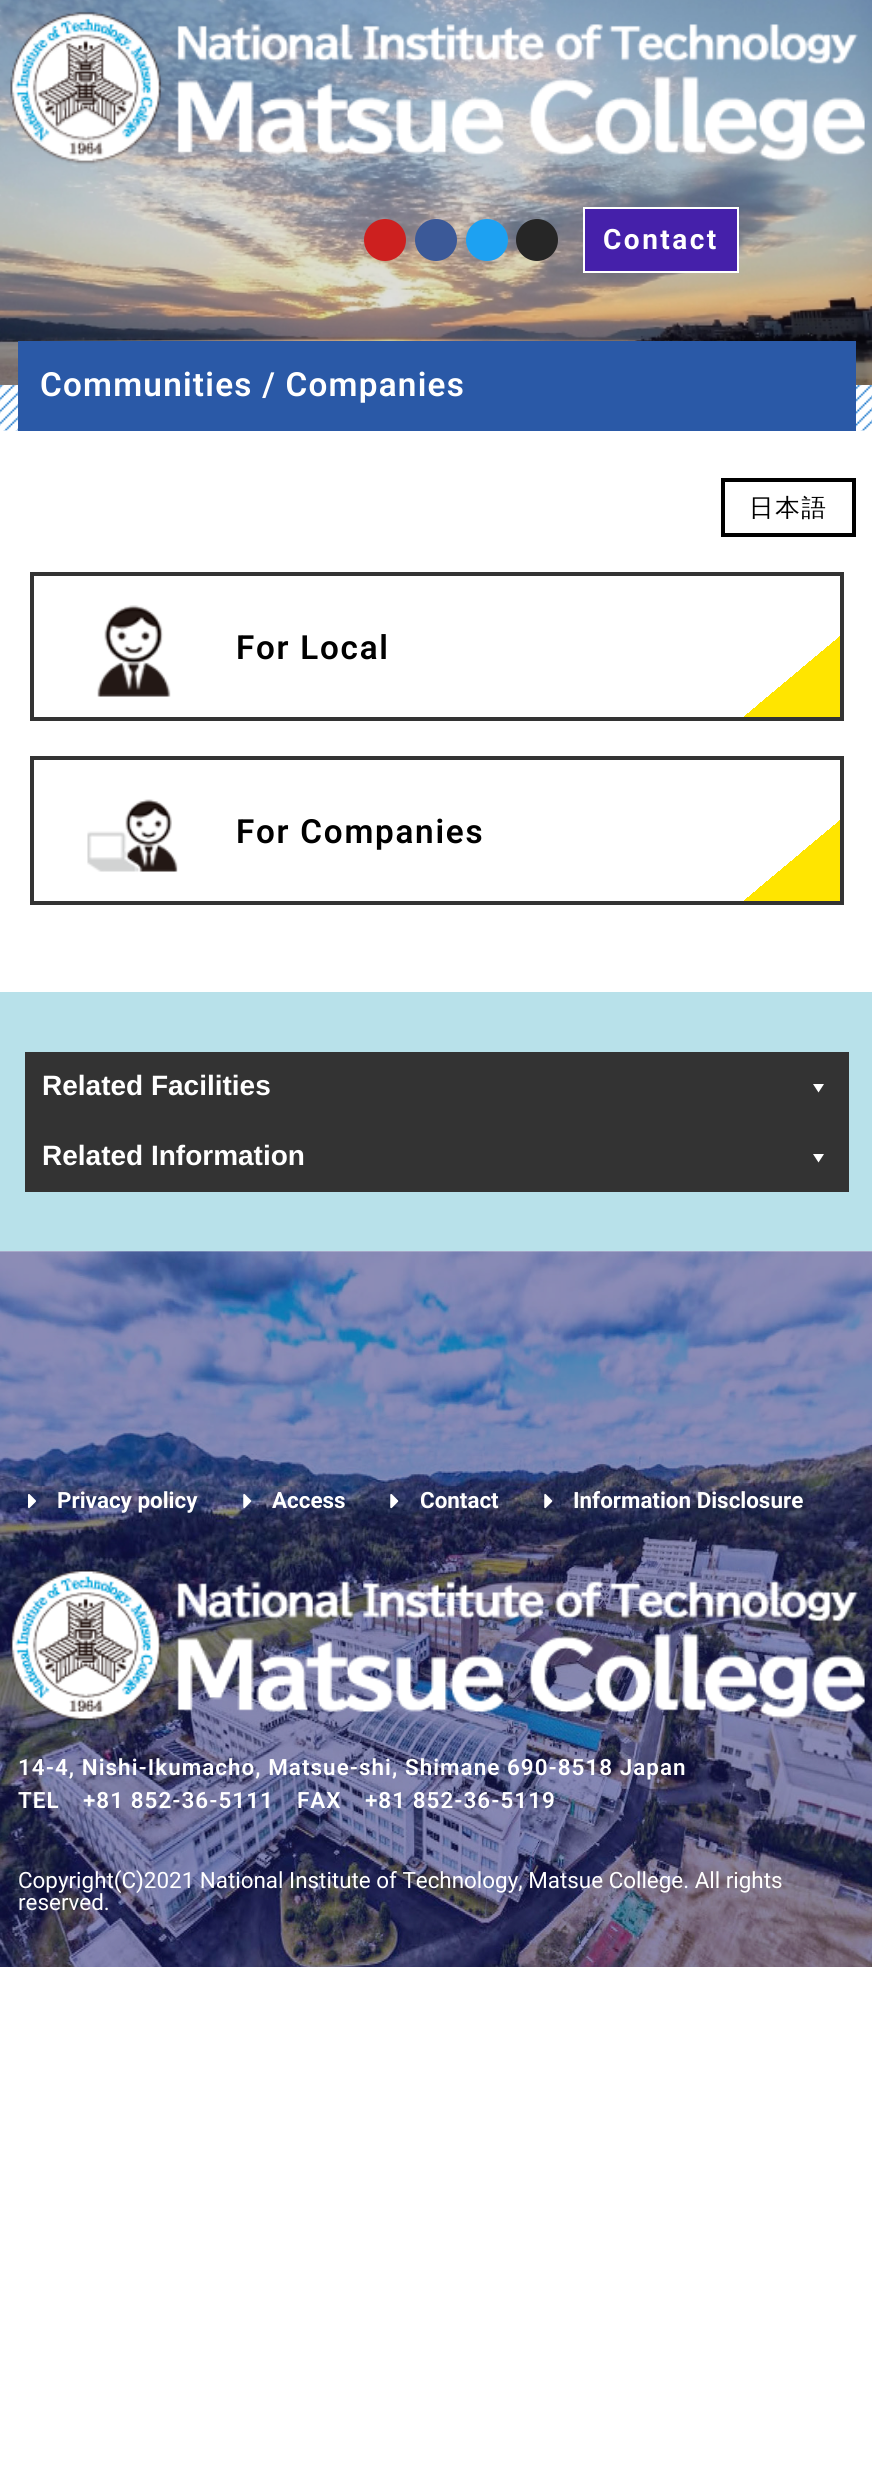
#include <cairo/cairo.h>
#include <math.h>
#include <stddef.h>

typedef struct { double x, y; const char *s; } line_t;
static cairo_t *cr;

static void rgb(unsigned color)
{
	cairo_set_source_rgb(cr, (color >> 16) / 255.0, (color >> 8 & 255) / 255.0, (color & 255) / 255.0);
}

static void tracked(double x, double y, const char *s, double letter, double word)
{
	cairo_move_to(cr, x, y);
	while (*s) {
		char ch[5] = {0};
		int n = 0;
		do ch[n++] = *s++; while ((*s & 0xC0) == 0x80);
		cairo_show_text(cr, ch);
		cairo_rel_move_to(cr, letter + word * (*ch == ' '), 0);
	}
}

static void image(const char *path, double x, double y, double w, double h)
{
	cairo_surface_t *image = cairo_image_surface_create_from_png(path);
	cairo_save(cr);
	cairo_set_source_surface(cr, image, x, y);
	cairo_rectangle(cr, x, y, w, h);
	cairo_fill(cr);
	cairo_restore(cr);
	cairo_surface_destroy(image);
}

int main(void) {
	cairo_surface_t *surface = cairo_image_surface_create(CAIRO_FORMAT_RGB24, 872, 2465);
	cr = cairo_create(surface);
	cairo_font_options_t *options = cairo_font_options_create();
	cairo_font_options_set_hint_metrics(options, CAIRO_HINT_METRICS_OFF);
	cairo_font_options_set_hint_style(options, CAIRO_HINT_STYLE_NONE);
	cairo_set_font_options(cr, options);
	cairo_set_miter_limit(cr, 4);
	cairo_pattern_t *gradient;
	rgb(0xffffff);
	cairo_paint(cr);
	image("img/2.png", 0, 0, 872, 385);
	image("img/1.png", 10, 11, 855, 154);
	rgb(0xcd201f);
	cairo_arc(cr, 385, 240, 21, 0, 2 * M_PI);
	cairo_fill(cr);
	rgb(0x3b5998);
	cairo_arc(cr, 436, 240, 21, 0, 2 * M_PI);
	cairo_fill(cr);
	rgb(0x1da1f2);
	cairo_arc(cr, 487, 240, 21, 0, 2 * M_PI);
	cairo_fill(cr);
	rgb(0x262626);
	cairo_arc(cr, 537, 240, 21, 0, 2 * M_PI);
	cairo_fill(cr);
	rgb(0x4520aa);
	cairo_rectangle(cr, 584, 208, 154, 64);
	cairo_fill_preserve(cr);
	rgb(0xffffff);
	cairo_stroke(cr);
	image("img/3.png", 0, 385, 872, 46);
	rgb(0x2a59a7);
	cairo_rectangle(cr, 18, 341, 838, 90);
	cairo_fill(cr);
	cairo_rectangle(cr, 723, 480, 131, 55);
	rgb(0x000000);
	cairo_set_line_width(cr, 4);
	cairo_stroke(cr);
	gradient = cairo_pattern_create_linear(235, 406, 638, 887);
	cairo_pattern_add_color_stop_rgba(gradient, 0.9, 1, 1, 1, 1);
	cairo_pattern_add_color_stop_rgba(gradient, 0.9, 1, 0.898, 0, 1);
	cairo_set_source(cr, gradient);
	cairo_pattern_destroy(gradient);
	cairo_rectangle(cr, 744, 636, 96, 81);
	cairo_fill(cr);
	cairo_rectangle(cr, 32, 574, 810, 145);
	rgb(0x333333);
	cairo_stroke(cr);
	image("img/4.png", 97, 605, 74, 92);
	gradient = cairo_pattern_create_linear(235, 590, 638, 1071);
	cairo_pattern_add_color_stop_rgba(gradient, 0.9, 1, 1, 1, 1);
	cairo_pattern_add_color_stop_rgba(gradient, 0.9, 1, 0.898, 0, 1);
	cairo_set_source(cr, gradient);
	cairo_pattern_destroy(gradient);
	cairo_rectangle(cr, 744, 820, 96, 81);
	cairo_fill(cr);
	cairo_rectangle(cr, 32, 758, 810, 145);
	rgb(0x333333);
	cairo_stroke(cr);
	image("img/5.png", 87, 799, 91, 73);
	rgb(0xb8e1ea);
	cairo_rectangle(cr, 0, 992, 872, 259);
	cairo_fill(cr);
	rgb(0x333333);
	cairo_rectangle(cr, 25, 1052, 824, 140);
	cairo_fill(cr);
	rgb(0xffffff);
	cairo_new_path(cr);
	cairo_move_to(cr, 824, 1084);
	cairo_line_to(cr, 818.5, 1092.5);
	cairo_line_to(cr, 813, 1084);
	cairo_close_path(cr);
	cairo_fill(cr);
	cairo_new_path(cr);
	cairo_move_to(cr, 824, 1154);
	cairo_line_to(cr, 818.5, 1162.5);
	cairo_line_to(cr, 813, 1154);
	cairo_close_path(cr);
	cairo_fill(cr);
	image("img/6.png", 0, 1251, 872, 716);
	image("img/7.png", 28, 1494, 8, 15);
	image("img/8.png", 243, 1494, 9, 15);
	image("img/9.png", 390, 1494, 9, 15);
	image("img/10.png", 544, 1494, 9, 15);
	image("img/11.png", 10, 1569, 855, 152);
	cairo_select_font_face(cr, "Roboto", CAIRO_FONT_SLANT_NORMAL, CAIRO_FONT_WEIGHT_BOLD);
	cairo_set_font_size(cr, 28);
	tracked(603, 249, "Contact", 2.5, 0);
	cairo_select_font_face(cr, "Roboto SemiBold", CAIRO_FONT_SLANT_NORMAL, CAIRO_FONT_WEIGHT_NORMAL);
	cairo_set_font_size(cr, 33.25);
	tracked(40, 396, "Communities / Companies", 1.25, 0);
	cairo_select_font_face(cr, "WenQuanYi Zen Hei Medium", CAIRO_FONT_SLANT_NORMAL, CAIRO_FONT_WEIGHT_NORMAL);
	cairo_set_font_size(cr, 24.5);
	rgb(0x000000);
	tracked(749, 516, "日本語", 1.75, 0);
	cairo_select_font_face(cr, "Roboto SemiBold", CAIRO_FONT_SLANT_NORMAL, CAIRO_FONT_WEIGHT_NORMAL);
	cairo_set_font_size(cr, 33.25);
	tracked(236, 659, "For Local", 1.75, 0);
	tracked(236, 843, "For Companies", 1.75, 0);
	cairo_select_font_face(cr, "Liberation Sans", CAIRO_FONT_SLANT_NORMAL, CAIRO_FONT_WEIGHT_BOLD);
	cairo_set_font_size(cr, 28);
	rgb(0xffffff);
	cairo_move_to(cr, 42, 1095);
	cairo_show_text(cr, "Related Facilities");
	cairo_move_to(cr, 42, 1165);
	cairo_show_text(cr, "Related Information");
	cairo_select_font_face(cr, "Roboto", CAIRO_FONT_SLANT_NORMAL, CAIRO_FONT_WEIGHT_BOLD);
	cairo_set_font_size(cr, 22.4);
	{
		static const line_t items[] = {
			{57, 1508, "Privacy policy"},
			{272, 1508, "Access"},
			{420, 1508, "Contact"},
			{573, 1508, "Information Disclosure"},
		};
		for (size_t i = 0; i < sizeof items / sizeof *items; i++) {
			cairo_move_to(cr, items[i].x, items[i].y);
			cairo_show_text(cr, items[i].s);
		}
	}
	cairo_select_font_face(cr, "Roboto SemiBold", CAIRO_FONT_SLANT_NORMAL, CAIRO_FONT_WEIGHT_NORMAL);
	{
		static const line_t items[] = {
			{18, 1775, "14-4, Nishi-Ikumacho, Matsue-shi, Shimane 690-8518 Japan"},
			{18, 1808, "TEL"},
			{83, 1808, "+81 852-36-5111"},
			{297, 1808, "FAX"},
			{365, 1808, "+81 852-36-5119"},
		};
		for (size_t i = 0; i < sizeof items / sizeof *items; i++) {
			tracked(items[i].x, items[i].y, items[i].s, 1.05, 0);
		}
	}
	cairo_select_font_face(cr, "Roboto", CAIRO_FONT_SLANT_NORMAL, CAIRO_FONT_WEIGHT_NORMAL);
	cairo_move_to(cr, 18, 1888);
	cairo_show_text(cr, "Copyright(C)2021 National Institute of Technology, Matsue College. All rights");
	cairo_move_to(cr, 18, 1910);
	cairo_show_text(cr, "reserved.");
	cairo_surface_write_to_png(surface, "page.png");
	cairo_font_options_destroy(options);
	cairo_destroy(cr);
	cairo_surface_destroy(surface);
	return 0;
}
